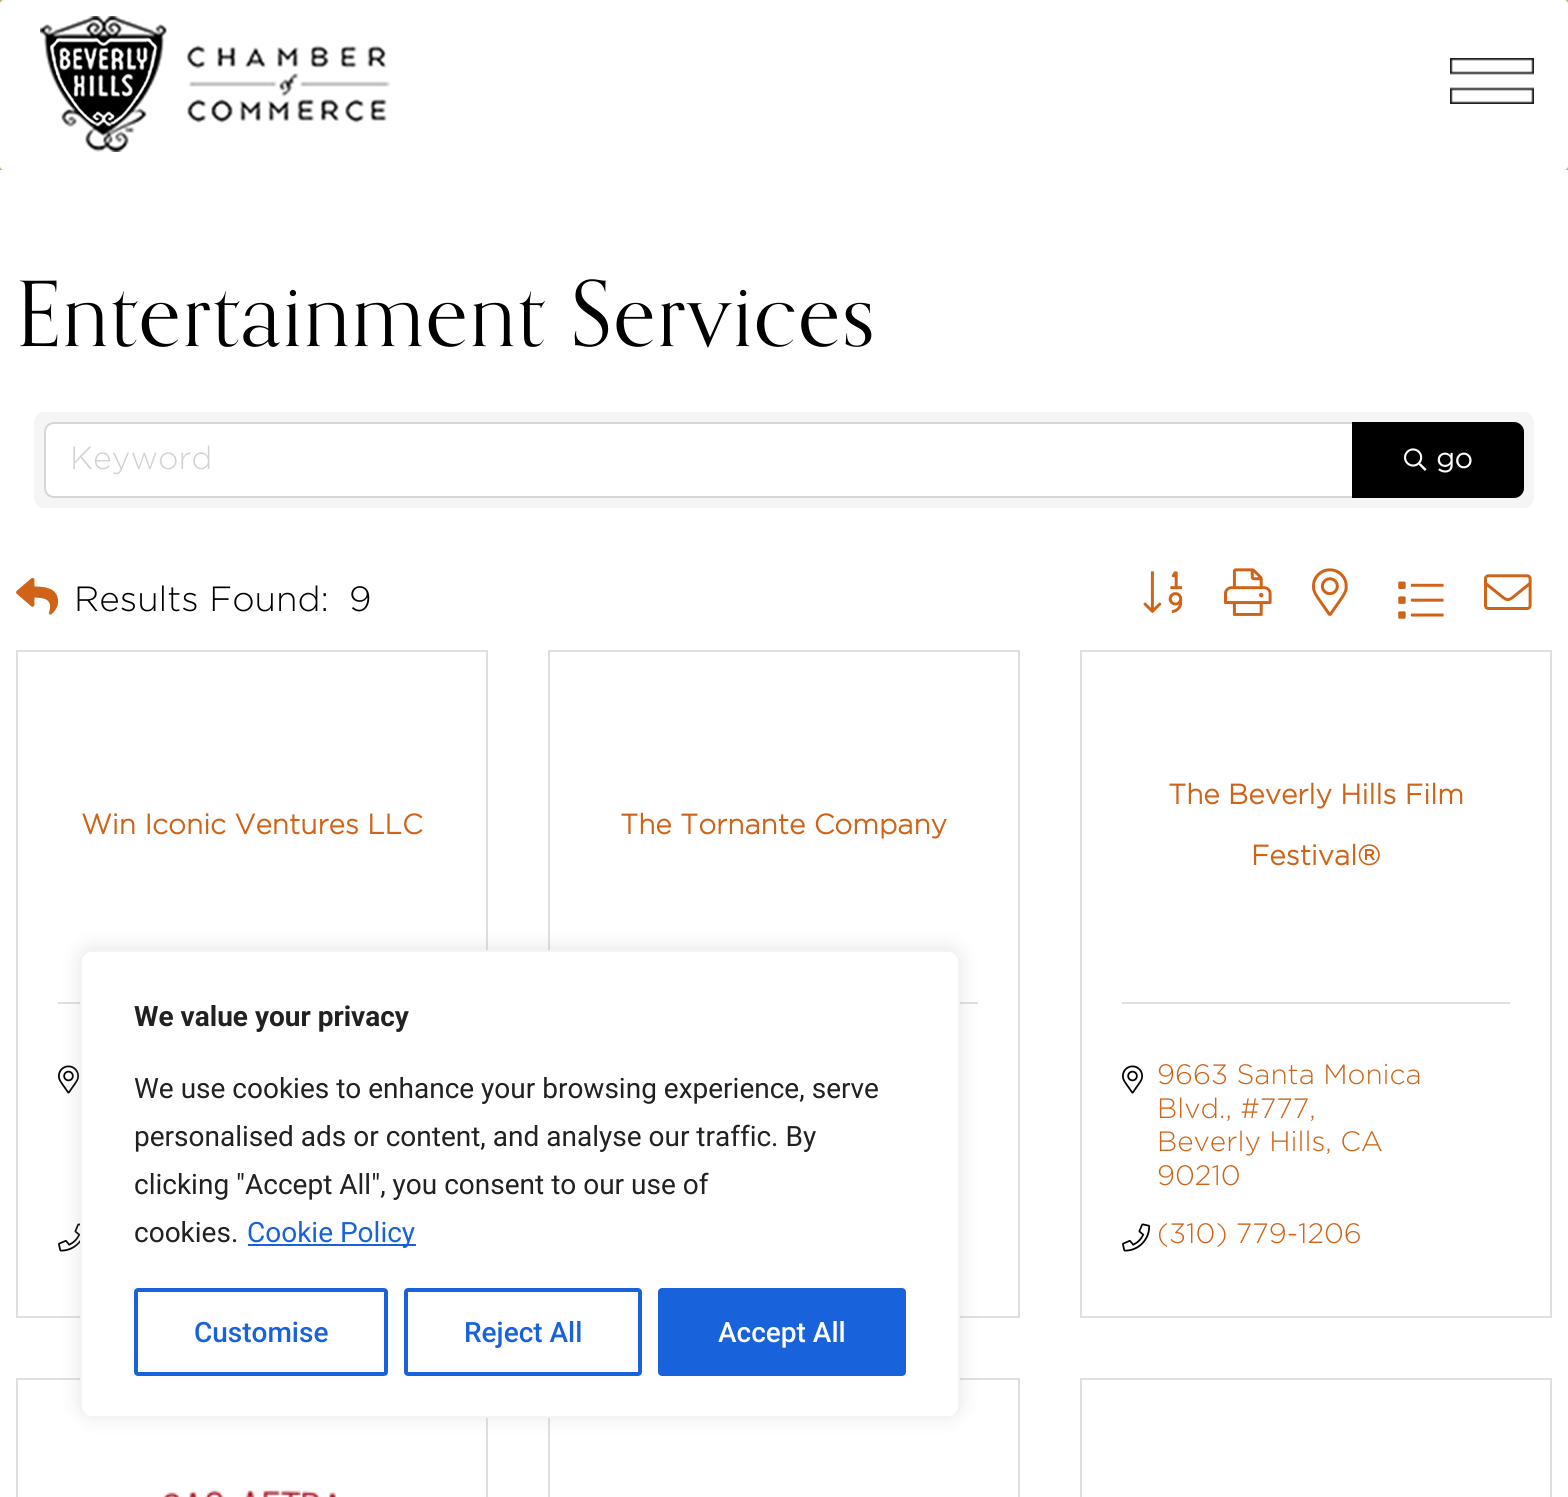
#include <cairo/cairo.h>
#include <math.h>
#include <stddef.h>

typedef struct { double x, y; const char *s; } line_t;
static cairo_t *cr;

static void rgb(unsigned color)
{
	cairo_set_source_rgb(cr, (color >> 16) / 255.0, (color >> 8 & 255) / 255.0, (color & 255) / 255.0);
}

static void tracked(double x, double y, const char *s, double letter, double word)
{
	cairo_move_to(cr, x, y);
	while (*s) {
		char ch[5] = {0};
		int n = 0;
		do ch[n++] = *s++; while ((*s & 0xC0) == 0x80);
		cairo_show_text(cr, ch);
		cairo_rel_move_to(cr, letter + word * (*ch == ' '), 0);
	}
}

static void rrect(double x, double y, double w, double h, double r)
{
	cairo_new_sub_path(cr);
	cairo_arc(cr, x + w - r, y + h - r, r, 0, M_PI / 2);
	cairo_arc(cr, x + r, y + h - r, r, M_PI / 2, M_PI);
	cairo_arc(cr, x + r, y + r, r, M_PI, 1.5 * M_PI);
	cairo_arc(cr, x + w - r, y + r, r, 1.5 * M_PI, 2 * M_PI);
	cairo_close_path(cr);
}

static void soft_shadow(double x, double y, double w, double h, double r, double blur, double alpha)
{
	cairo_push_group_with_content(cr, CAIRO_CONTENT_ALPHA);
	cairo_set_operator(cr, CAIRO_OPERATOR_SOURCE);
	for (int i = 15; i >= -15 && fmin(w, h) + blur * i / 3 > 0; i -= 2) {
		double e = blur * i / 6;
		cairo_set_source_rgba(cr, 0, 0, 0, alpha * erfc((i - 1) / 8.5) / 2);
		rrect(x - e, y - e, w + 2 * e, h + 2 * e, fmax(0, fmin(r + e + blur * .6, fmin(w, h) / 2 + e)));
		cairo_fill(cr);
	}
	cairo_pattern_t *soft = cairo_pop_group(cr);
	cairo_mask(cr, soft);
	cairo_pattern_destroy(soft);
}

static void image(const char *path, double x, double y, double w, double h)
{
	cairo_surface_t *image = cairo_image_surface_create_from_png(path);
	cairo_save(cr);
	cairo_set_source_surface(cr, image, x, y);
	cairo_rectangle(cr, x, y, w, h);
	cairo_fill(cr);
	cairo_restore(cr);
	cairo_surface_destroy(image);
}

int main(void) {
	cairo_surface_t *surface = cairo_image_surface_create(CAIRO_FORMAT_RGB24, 1568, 1497);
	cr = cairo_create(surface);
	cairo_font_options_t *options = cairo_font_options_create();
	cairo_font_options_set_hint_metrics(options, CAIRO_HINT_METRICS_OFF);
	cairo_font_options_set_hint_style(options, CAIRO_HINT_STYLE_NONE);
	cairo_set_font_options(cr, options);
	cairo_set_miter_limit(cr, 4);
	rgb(0xffffff);
	cairo_paint(cr);
	rgb(0xc7b06c);
	cairo_rectangle(cr, 0, 0, 1568, 170);
	cairo_fill(cr);
	rgb(0xffffff);
	rrect(0, 0, 1568, 170, 4);
	cairo_fill(cr);
	image("img/1.png", 40, 16, 350, 136);
	image("img/2.png", 1450, 58, 84, 46);
	rgb(0xf5f5f5);
	rrect(34, 412, 1500, 96, 10);
	cairo_fill(cr);
	rgb(0xffffff);
	cairo_new_path(cr);
	cairo_move_to(cr, 54, 423);
	cairo_line_to(cr, 1353, 423);
	cairo_line_to(cr, 1353, 497);
	cairo_line_to(cr, 54, 497);
	cairo_curve_to(cr, 49, 497, 45, 493, 45, 488);
	cairo_line_to(cr, 45, 432);
	cairo_curve_to(cr, 45, 427, 49, 423, 54, 423);
	cairo_close_path(cr);
	cairo_fill_preserve(cr);
	rgb(0xd6d6d6);
	cairo_stroke(cr);
	rgb(0x000000);
	cairo_new_path(cr);
	cairo_move_to(cr, 1352, 422);
	cairo_line_to(cr, 1514, 422);
	cairo_curve_to(cr, 1519.5, 422, 1524, 426.5, 1524, 432);
	cairo_line_to(cr, 1524, 488);
	cairo_curve_to(cr, 1524, 493.5, 1519.5, 498, 1514, 498);
	cairo_line_to(cr, 1352, 498);
	cairo_close_path(cr);
	cairo_fill(cr);
	cairo_new_path(cr);
	cairo_move_to(cr, 1353, 423);
	cairo_line_to(cr, 1514, 423);
	cairo_curve_to(cr, 1519, 423, 1523, 427, 1523, 432);
	cairo_line_to(cr, 1523, 488);
	cairo_curve_to(cr, 1523, 493, 1519, 497, 1514, 497);
	cairo_line_to(cr, 1353, 497);
	cairo_close_path(cr);
	cairo_set_source_rgba(cr, 0, 0, 0, 0.12);
	cairo_stroke(cr);
	image("img/3.png", 1404, 448, 23, 23);
	image("img/4.png", 16, 577, 43, 38);
	image("img/5.png", 1143, 571, 40, 42);
	image("img/6.png", 1224, 568, 48, 48);
	image("img/7.png", 1312, 568, 36, 48);
	image("img/8.png", 1398, 581, 46, 38);
	image("img/9.png", 1484, 574, 48, 36);
	cairo_rectangle(cr, 17, 651, 470, 666);
	rgb(0xdfdfdf);
	cairo_stroke(cr);
	cairo_rectangle(cr, 58, 1002, 22, 2);
	cairo_fill(cr);
	image("img/10.png", 58, 1065, 21, 29);
	image("img/11.png", 58, 1223, 22, 29);
	cairo_rectangle(cr, 549, 651, 470, 666);
	cairo_stroke(cr);
	cairo_rectangle(cr, 960, 1002, 18, 2);
	cairo_fill(cr);
	cairo_rectangle(cr, 1081, 651, 470, 666);
	cairo_stroke(cr);
	cairo_rectangle(cr, 1122, 1002, 388, 2);
	cairo_fill(cr);
	image("img/10.png", 1122, 1065, 21, 29);
	image("img/12.png", 1122, 1223, 29, 29);
	cairo_rectangle(cr, 17, 1379, 470, 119);
	cairo_stroke(cr);
	image("img/13.png", 162, 1490, 174, 7);
	cairo_rectangle(cr, 549, 1379, 470, 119);
	cairo_stroke(cr);
	cairo_rectangle(cr, 1081, 1379, 470, 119);
	cairo_stroke(cr);
	rgb(0xacabab);
	soft_shadow(80, 948, 880, 468, 12, 10, 0.3);
	rgb(0xffffff);
	rrect(81, 951, 878, 466, 11);
	cairo_fill_preserve(cr);
	rgb(0xf4f4f4);
	cairo_stroke(cr);
	rgb(0x1863dc);
	cairo_rectangle(cr, 248, 1244, 168, 2);
	cairo_fill(cr);
	rrect(136, 1290, 250, 84, 2);
	cairo_set_line_width(cr, 4);
	cairo_stroke(cr);
	rrect(406, 1290, 234, 84, 2);
	cairo_stroke(cr);
	rrect(660, 1290, 244, 84, 2);
	cairo_fill_preserve(cr);
	cairo_stroke(cr);
	cairo_select_font_face(cr, "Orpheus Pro", CAIRO_FONT_SLANT_NORMAL, CAIRO_FONT_WEIGHT_NORMAL);
	cairo_set_font_size(cr, 90);
	rgb(0x000000);
	tracked(16, 346, "Entertainment Services", 2, 0);
	cairo_select_font_face(cr, "Gotham Light", CAIRO_FONT_SLANT_NORMAL, CAIRO_FONT_WEIGHT_NORMAL);
	cairo_set_font_size(cr, 32);
	rgb(0xd2d2d2);
	cairo_move_to(cr, 70, 469);
	cairo_show_text(cr, "Keyword");
	cairo_select_font_face(cr, "Gotham", CAIRO_FONT_SLANT_NORMAL, CAIRO_FONT_WEIGHT_BOLD);
	cairo_set_font_size(cr, 28);
	rgb(0xffffff);
	cairo_move_to(cr, 1436, 468);
	cairo_show_text(cr, "go");
	cairo_select_font_face(cr, "Gotham Light", CAIRO_FONT_SLANT_NORMAL, CAIRO_FONT_WEIGHT_NORMAL);
	cairo_set_font_size(cr, 35);
	rgb(0x000000);
	cairo_move_to(cr, 74, 611);
	cairo_show_text(cr, "Results Found:");
	cairo_move_to(cr, 349, 611);
	cairo_show_text(cr, "9");
	cairo_select_font_face(cr, "Gotham", CAIRO_FONT_SLANT_NORMAL, CAIRO_FONT_WEIGHT_BOLD);
	cairo_set_font_size(cr, 28);
	rgb(0xcf6318);
	{
		static const line_t items[] = {
			{81, 834, "Win Iconic Ventures LLC"},
			{620, 834, "The Tornante Company"},
			{1168, 804, "The Beverly Hills Film"},
			{1251, 865, "Festival®"},
		};
		for (size_t i = 0; i < sizeof items / sizeof *items; i++) {
			cairo_move_to(cr, items[i].x, items[i].y);
			cairo_show_text(cr, items[i].s);
		}
	}
	cairo_select_font_face(cr, "Gotham Light", CAIRO_FONT_SLANT_NORMAL, CAIRO_FONT_WEIGHT_NORMAL);
	{
		static const line_t items[] = {
			{1157, 1084, "9663 Santa Monica"},
			{1157, 1118, "Blvd., #777,"},
			{1157, 1151, "Beverly Hills, CA"},
			{1157, 1185, "90210"},
			{1157, 1243, "(310) 779-1206"},
		};
		for (size_t i = 0; i < sizeof items / sizeof *items; i++) {
			cairo_move_to(cr, items[i].x, items[i].y);
			cairo_show_text(cr, items[i].s);
		}
	}
	cairo_select_font_face(cr, "Roboto", CAIRO_FONT_SLANT_NORMAL, CAIRO_FONT_WEIGHT_BOLD);
	rgb(0x212121);
	cairo_move_to(cr, 134, 1026);
	cairo_show_text(cr, "We value your privacy");
	cairo_select_font_face(cr, "Roboto", CAIRO_FONT_SLANT_NORMAL, CAIRO_FONT_WEIGHT_NORMAL);
	{
		static const line_t items[] = {
			{134, 1098, "We use cookies to enhance your browsing experience, serve"},
			{134, 1146, "personalised ads or content, and analyse our traffic. By"},
			{134, 1194, "clicking \"Accept All\", you consent to our use of"},
			{134, 1242, "cookies."},
		};
		for (size_t i = 0; i < sizeof items / sizeof *items; i++) {
			cairo_move_to(cr, items[i].x, items[i].y);
			cairo_show_text(cr, items[i].s);
		}
	}
	rgb(0x1863dc);
	cairo_move_to(cr, 247, 1242);
	cairo_show_text(cr, "Cookie Policy");
	cairo_select_font_face(cr, "Roboto Medium", CAIRO_FONT_SLANT_NORMAL, CAIRO_FONT_WEIGHT_NORMAL);
	cairo_move_to(cr, 194, 1342);
	cairo_show_text(cr, "Customise");
	cairo_move_to(cr, 464, 1342);
	cairo_show_text(cr, "Reject All");
	rgb(0xffffff);
	cairo_move_to(cr, 718, 1342);
	cairo_show_text(cr, "Accept All");
	cairo_surface_write_to_png(surface, "page.png");
	cairo_font_options_destroy(options);
	cairo_destroy(cr);
	cairo_surface_destroy(surface);
	return 0;
}
